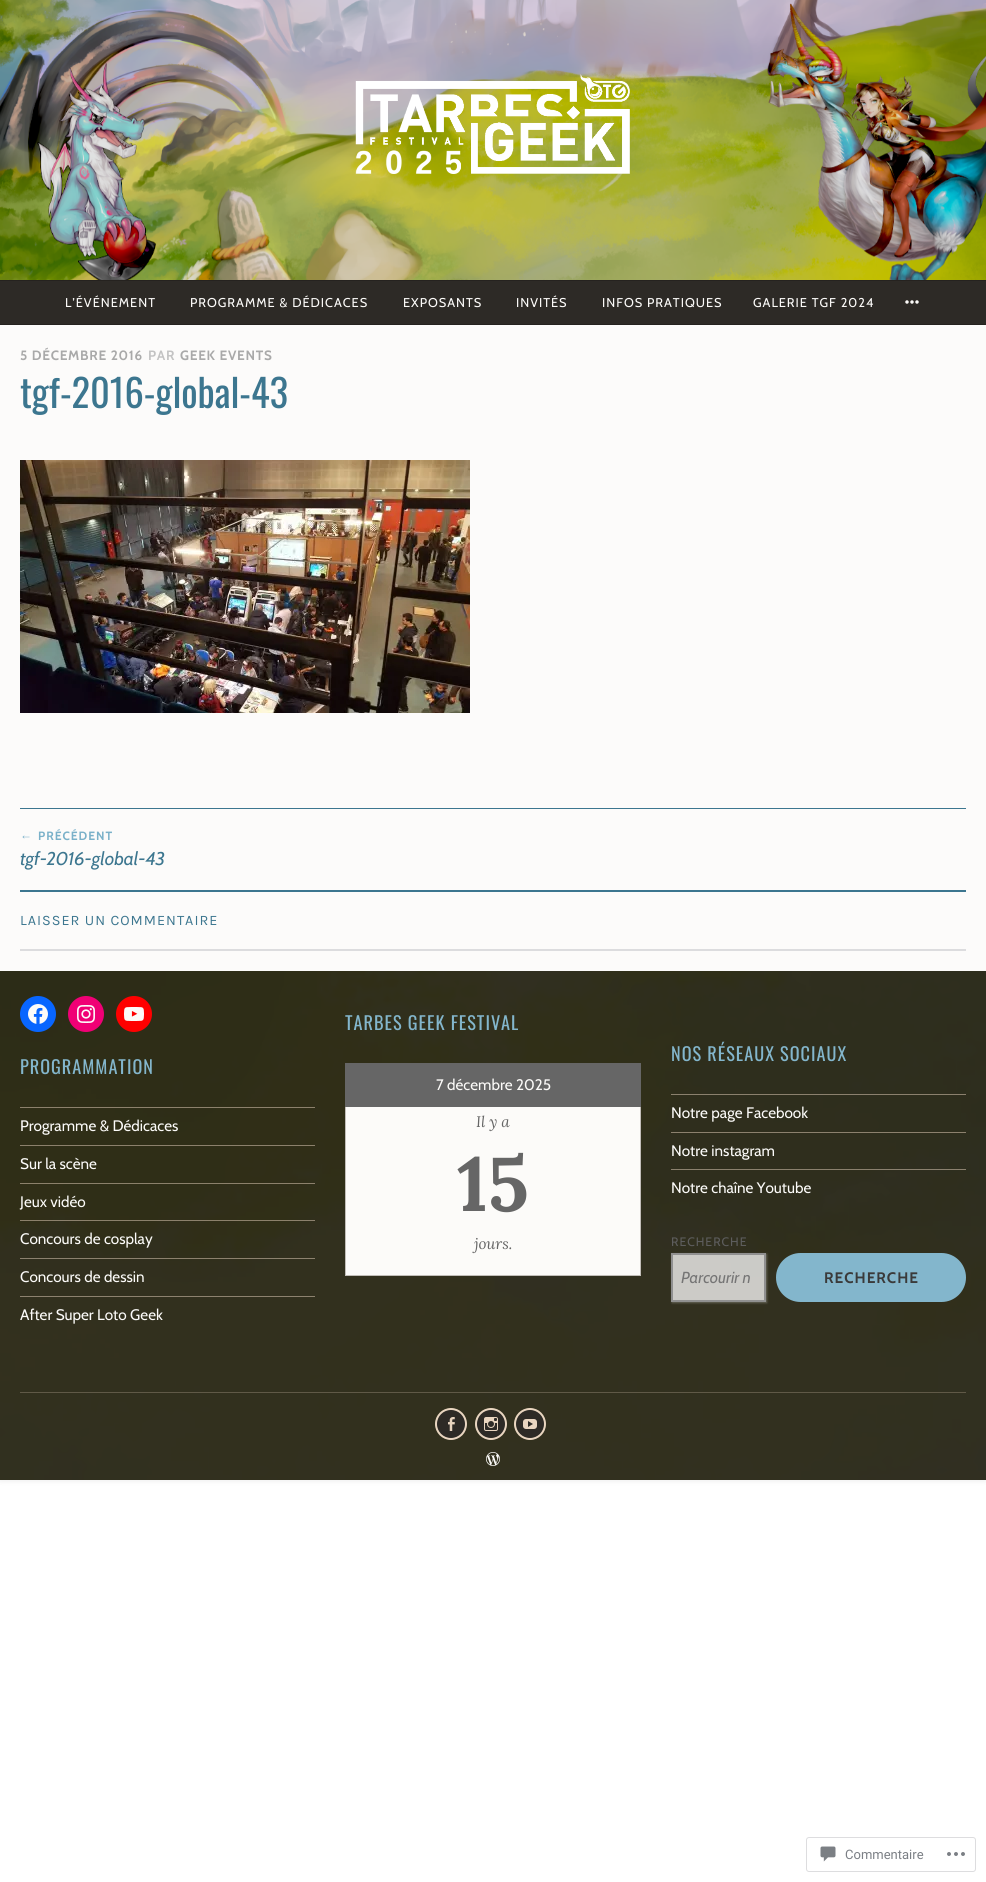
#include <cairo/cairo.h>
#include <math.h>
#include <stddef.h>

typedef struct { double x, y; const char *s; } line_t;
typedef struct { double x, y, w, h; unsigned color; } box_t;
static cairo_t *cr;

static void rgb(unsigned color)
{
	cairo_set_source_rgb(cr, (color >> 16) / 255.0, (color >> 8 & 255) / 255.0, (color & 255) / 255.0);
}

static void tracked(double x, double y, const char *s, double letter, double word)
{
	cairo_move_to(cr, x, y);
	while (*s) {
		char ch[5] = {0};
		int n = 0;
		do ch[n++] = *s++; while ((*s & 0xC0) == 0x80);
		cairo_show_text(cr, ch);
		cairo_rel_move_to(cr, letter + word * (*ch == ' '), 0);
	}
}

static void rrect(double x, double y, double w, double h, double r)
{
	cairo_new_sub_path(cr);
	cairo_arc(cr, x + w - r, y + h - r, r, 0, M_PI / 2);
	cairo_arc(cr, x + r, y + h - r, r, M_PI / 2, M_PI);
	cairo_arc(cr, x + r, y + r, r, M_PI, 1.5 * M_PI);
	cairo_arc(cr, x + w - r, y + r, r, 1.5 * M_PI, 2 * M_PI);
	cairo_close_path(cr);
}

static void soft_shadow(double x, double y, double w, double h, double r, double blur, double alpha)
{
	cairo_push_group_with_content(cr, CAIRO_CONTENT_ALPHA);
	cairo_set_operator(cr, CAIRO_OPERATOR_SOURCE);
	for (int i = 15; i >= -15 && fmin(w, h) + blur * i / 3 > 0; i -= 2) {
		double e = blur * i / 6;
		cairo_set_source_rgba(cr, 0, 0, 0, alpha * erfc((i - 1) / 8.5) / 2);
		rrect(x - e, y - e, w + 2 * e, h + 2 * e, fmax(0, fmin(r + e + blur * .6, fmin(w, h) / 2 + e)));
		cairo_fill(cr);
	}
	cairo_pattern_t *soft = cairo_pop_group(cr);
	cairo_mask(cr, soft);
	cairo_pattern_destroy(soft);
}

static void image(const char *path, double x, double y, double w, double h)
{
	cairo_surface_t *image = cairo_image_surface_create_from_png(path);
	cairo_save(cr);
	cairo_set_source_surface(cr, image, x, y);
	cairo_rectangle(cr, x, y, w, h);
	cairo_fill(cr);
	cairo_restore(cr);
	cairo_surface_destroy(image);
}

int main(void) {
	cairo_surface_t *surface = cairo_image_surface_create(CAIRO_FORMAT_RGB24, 986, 1882);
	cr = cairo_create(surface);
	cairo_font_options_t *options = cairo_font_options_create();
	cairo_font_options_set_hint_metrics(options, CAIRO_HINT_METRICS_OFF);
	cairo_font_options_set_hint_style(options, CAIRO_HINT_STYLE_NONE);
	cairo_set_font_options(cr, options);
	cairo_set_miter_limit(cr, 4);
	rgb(0xffffff);
	cairo_paint(cr);
	rgb(0x000000);
	soft_shadow(0, 0, 986, 1480, 0, 3, 0.1);
	rgb(0xfcfbfa);
	cairo_rectangle(cr, 0, 325, 986, 646);
	cairo_fill(cr);
	image("img/1.png", 0, 0, 986, 280);
	image("img/2.png", 355, 74, 275, 100);
	{
		static const box_t items[] = {
			{0, 281, 986, 43, 0x2d2a26},
			{0, 280, 986, 1, 0x25221f},
			{0, 324, 986, 1, 0x25221f},
		};
		for (size_t i = 0; i < sizeof items / sizeof *items; i++) {
			rgb(items[i].color);
			cairo_rectangle(cr, items[i].x, items[i].y, items[i].w, items[i].h);
			cairo_fill(cr);
		}
	}
	image("img/3.png", 905, 300, 14, 4);
	image("img/4.png", 20, 460, 450, 253);
	{
		static const box_t items[] = {
			{20, 808, 946, 1, 0x3c768f},
			{20, 890, 946, 2, 0x3c768f},
			{20, 949, 946, 2, 0xdcdcde},
		};
		for (size_t i = 0; i < sizeof items / sizeof *items; i++) {
			rgb(items[i].color);
			cairo_rectangle(cr, items[i].x, items[i].y, items[i].w, items[i].h);
			cairo_fill(cr);
		}
	}
	image("img/5.png", 0, 971, 986, 509);
	rgb(0x605947);
	cairo_rectangle(cr, 20, 1392, 946, 1);
	cairo_fill(cr);
	rgb(0x0866ff);
	cairo_arc(cr, 38, 1014, 18, 0, 2 * M_PI);
	cairo_fill(cr);
	image("img/6.png", 28, 1004, 20, 20);
	rgb(0xf00075);
	cairo_arc(cr, 86, 1014, 18, 0, 2 * M_PI);
	cairo_fill(cr);
	image("img/7.png", 77, 1005, 18, 18);
	rgb(0xff0000);
	cairo_arc(cr, 134, 1014, 18, 0, 2 * M_PI);
	cairo_fill(cr);
	image("img/8.png", 124, 1007, 20, 14);
	rgb(0x8c816c);
	cairo_rectangle(cr, 20, 1107, 295, 1);
	cairo_fill(cr);
	cairo_rectangle(cr, 20, 1145, 295, 1);
	cairo_fill(cr);
	cairo_set_source_rgba(cr, 0.914, 0.835, 0.753, 0.5);
	cairo_rectangle(cr, 20, 1183, 295, 1);
	cairo_fill(cr);
	cairo_rectangle(cr, 20, 1220, 295, 1);
	cairo_fill(cr);
	cairo_rectangle(cr, 20, 1258, 295, 1);
	cairo_fill(cr);
	rgb(0x8d826f);
	cairo_rectangle(cr, 20, 1296, 295, 1);
	cairo_fill(cr);
	rgb(0x666666);
	cairo_rectangle(cr, 345, 1063, 296, 44);
	cairo_fill(cr);
	rgb(0xfcfbf9);
	cairo_rectangle(cr, 346, 1107, 294, 168);
	cairo_fill(cr);
	rgb(0xc2beb9);
	cairo_rectangle(cr, 640, 1107, 1, 169);
	cairo_fill(cr);
	cairo_rectangle(cr, 345, 1275, 296, 1);
	cairo_fill(cr);
	cairo_rectangle(cr, 345, 1107, 1, 169);
	cairo_fill(cr);
	cairo_set_source_rgba(cr, 0.914, 0.835, 0.753, 0.5);
	cairo_rectangle(cr, 671, 1094, 295, 1);
	cairo_fill(cr);
	rgb(0x8c816e);
	cairo_rectangle(cr, 671, 1132, 295, 1);
	cairo_fill(cr);
	cairo_set_source_rgba(cr, 0.914, 0.835, 0.753, 0.5);
	cairo_rectangle(cr, 671, 1169, 295, 1);
	cairo_fill(cr);
	cairo_save(cr);
	cairo_set_fill_rule(cr, CAIRO_FILL_RULE_EVEN_ODD);
	cairo_new_path(cr);
	cairo_move_to(cr, 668, 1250);
	cairo_line_to(cr, 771, 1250);
	cairo_line_to(cr, 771, 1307);
	cairo_line_to(cr, 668, 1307);
	cairo_close_path(cr);
	cairo_move_to(cr, 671, 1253);
	cairo_line_to(cr, 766, 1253);
	cairo_line_to(cr, 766, 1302);
	cairo_line_to(cr, 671, 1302);
	cairo_close_path(cr);
	cairo_clip(cr);
	rgb(0xffffff);
	soft_shadow(672, 1254, 95, 49, 0, 1, 0.25);
	cairo_restore(cr);
	cairo_set_source_rgba(cr, 1, 1, 1, 0.75);
	cairo_rectangle(cr, 672, 1254, 93, 47);
	cairo_fill_preserve(cr);
	rgb(0x909090);
	cairo_stroke(cr);
	rgb(0x83b6cc);
	rrect(776, 1253, 190, 49, 24.5);
	cairo_fill(cr);
	rgb(0x2d2a26);
	cairo_arc(cr, 451, 1424, 15, 0, 2 * M_PI);
	cairo_fill_preserve(cr);
	rgb(0xe9d5c0);
	cairo_stroke(cr);
	image("img/9.png", 448, 1417, 7, 14);
	rgb(0x2d2a26);
	cairo_arc(cr, 491, 1424, 15, 0, 2 * M_PI);
	cairo_fill_preserve(cr);
	rgb(0xe9d5c0);
	cairo_stroke(cr);
	image("img/10.png", 484, 1417, 14, 14);
	rgb(0x2d2a26);
	cairo_arc(cr, 530, 1424, 15, 0, 2 * M_PI);
	cairo_fill_preserve(cr);
	rgb(0xe9d5c0);
	cairo_stroke(cr);
	image("img/11.png", 523, 1419, 14, 10);
	image("img/12.png", 486, 1452, 14, 14);
	rrect(806.5, 1837.5, 169, 34, 2.5);
	rgb(0xdddddf);
	cairo_set_line_width(cr, 1);
	cairo_stroke(cr);
	image("img/13.png", 820, 1846, 16, 16);
	image("img/14.png", 947, 1852, 18, 4);
	cairo_select_font_face(cr, "Cabin", CAIRO_FONT_SLANT_NORMAL, CAIRO_FONT_WEIGHT_NORMAL);
	cairo_set_font_size(cr, 12.75);
	rgb(0xfcfbf9);
	{
		static const line_t items[] = {
			{65, 307, "L’ÉVÉNEMENT"},
			{190, 307, "PROGRAMME & DÉDICACES"},
			{403, 307, "EXPOSANTS"},
			{516, 307, "INVITÉS"},
			{602, 307, "INFOS PRATIQUES"},
			{753, 307, "GALERIE TGF 2024"},
		};
		for (size_t i = 0; i < sizeof items / sizeof *items; i++) {
			tracked(items[i].x, items[i].y, items[i].s, 1, 0);
		}
	}
	cairo_select_font_face(cr, "Cabin", CAIRO_FONT_SLANT_NORMAL, CAIRO_FONT_WEIGHT_BOLD);
	cairo_set_font_size(cr, 13.5);
	rgb(0xa9a9a9);
	tracked(20, 360, "5 DÉCEMBRE 2016", 0.75, 0);
	rgb(0xc3c3c3);
	tracked(148, 360, "PAR", 0.75, 0);
	rgb(0xa9a9a9);
	tracked(180, 360, "GEEK EVENTS", 0.75, 0);
	cairo_select_font_face(cr, "Oswald", CAIRO_FONT_SLANT_NORMAL, CAIRO_FONT_WEIGHT_NORMAL);
	cairo_set_font_size(cr, 38.5);
	rgb(0x3c768f);
	cairo_move_to(cr, 20, 408);
	cairo_show_text(cr, "tgf-2016-global-43");
	cairo_select_font_face(cr, "Liberation Serif", CAIRO_FONT_SLANT_NORMAL, CAIRO_FONT_WEIGHT_NORMAL);
	cairo_set_font_size(cr, 12);
	rgb(0x7ab1c9);
	tracked(20, 839, "←", 1, 0);
	cairo_select_font_face(cr, "Cabin", CAIRO_FONT_SLANT_NORMAL, CAIRO_FONT_WEIGHT_BOLD);
	tracked(38, 840, "PRÉCÉDENT", 1, 0);
	cairo_select_font_face(cr, "Cabin", CAIRO_FONT_SLANT_ITALIC, CAIRO_FONT_WEIGHT_NORMAL);
	cairo_set_font_size(cr, 18.5);
	rgb(0x3c768f);
	cairo_move_to(cr, 20, 865);
	cairo_show_text(cr, "tgf-2016-global-43");
	cairo_select_font_face(cr, "Karla", CAIRO_FONT_SLANT_NORMAL, CAIRO_FONT_WEIGHT_NORMAL);
	cairo_set_font_size(cr, 14.4);
	tracked(20, 925, "LAISSER UN COMMENTAIRE", 1, 0);
	cairo_select_font_face(cr, "Oswald", CAIRO_FONT_SLANT_NORMAL, CAIRO_FONT_WEIGHT_NORMAL);
	cairo_set_font_size(cr, 18.25);
	rgb(0x83b6cc);
	tracked(20, 1074, "PROGRAMMATION", 1, 0);
	cairo_select_font_face(cr, "Cabin", CAIRO_FONT_SLANT_NORMAL, CAIRO_FONT_WEIGHT_NORMAL);
	cairo_set_font_size(cr, 15.25);
	rgb(0xfcfbf9);
	{
		static const line_t items[] = {
			{20, 1131, "Programme & Dédicaces"},
			{20, 1169, "Sur la scène"},
			{20, 1207, "Jeux vidéo"},
			{20, 1244, "Concours de cosplay"},
			{20, 1282, "Concours de dessin"},
			{20, 1320, "After Super Loto Geek"},
		};
		for (size_t i = 0; i < sizeof items / sizeof *items; i++) {
			cairo_move_to(cr, items[i].x, items[i].y);
			cairo_show_text(cr, items[i].s);
		}
	}
	cairo_select_font_face(cr, "Oswald", CAIRO_FONT_SLANT_NORMAL, CAIRO_FONT_WEIGHT_NORMAL);
	cairo_set_font_size(cr, 18.25);
	rgb(0x83b6cc);
	tracked(345, 1030, "TARBES GEEK FESTIVAL", 1, 0);
	cairo_select_font_face(cr, "Cabin", CAIRO_FONT_SLANT_NORMAL, CAIRO_FONT_WEIGHT_NORMAL);
	cairo_set_font_size(cr, 15.25);
	rgb(0xfcfbf9);
	cairo_move_to(cr, 436, 1090);
	cairo_show_text(cr, "7 décembre 2025");
	cairo_select_font_face(cr, "Lora", CAIRO_FONT_SLANT_ITALIC, CAIRO_FONT_WEIGHT_NORMAL);
	rgb(0x666666);
	cairo_move_to(cr, 476, 1127);
	cairo_show_text(cr, "Il y a");
	cairo_select_font_face(cr, "Lora", CAIRO_FONT_SLANT_NORMAL, CAIRO_FONT_WEIGHT_BOLD);
	cairo_set_font_size(cr, 76);
	cairo_move_to(cr, 457, 1211);
	cairo_show_text(cr, "15");
	cairo_select_font_face(cr, "Lora", CAIRO_FONT_SLANT_ITALIC, CAIRO_FONT_WEIGHT_NORMAL);
	cairo_set_font_size(cr, 15.25);
	cairo_move_to(cr, 474, 1249);
	cairo_show_text(cr, "jours.");
	cairo_select_font_face(cr, "Oswald", CAIRO_FONT_SLANT_NORMAL, CAIRO_FONT_WEIGHT_NORMAL);
	cairo_set_font_size(cr, 18.25);
	rgb(0x83b6cc);
	tracked(671, 1061, "NOS RÉSEAUX SOCIAUX", 1, 0);
	cairo_select_font_face(cr, "Cabin", CAIRO_FONT_SLANT_NORMAL, CAIRO_FONT_WEIGHT_NORMAL);
	cairo_set_font_size(cr, 15.25);
	rgb(0xfcfbf9);
	{
		static const line_t items[] = {
			{671, 1118, "Notre page Facebook"},
			{671, 1156, "Notre instagram"},
			{671, 1193, "Notre chaîne Youtube"},
		};
		for (size_t i = 0; i < sizeof items / sizeof *items; i++) {
			cairo_move_to(cr, items[i].x, items[i].y);
			cairo_show_text(cr, items[i].s);
		}
	}
	cairo_set_font_size(cr, 12.25);
	rgb(0x5d5d5d);
	tracked(671, 1246, "RECHERCHE", 1, 0);
	cairo_select_font_face(cr, "Cabin", CAIRO_FONT_SLANT_ITALIC, CAIRO_FONT_WEIGHT_NORMAL);
	cairo_set_font_size(cr, 16);
	rgb(0x757575);
	cairo_move_to(cr, 681, 1283);
	cairo_show_text(cr, "Parcourir n");
	cairo_select_font_face(cr, "Cabin", CAIRO_FONT_SLANT_NORMAL, CAIRO_FONT_WEIGHT_BOLD);
	cairo_set_font_size(cr, 15.25);
	rgb(0x3a3a3a);
	tracked(824, 1283, "RECHERCHE", 1, 0);
	cairo_select_font_face(cr, "Roboto", CAIRO_FONT_SLANT_NORMAL, CAIRO_FONT_WEIGHT_NORMAL);
	cairo_set_font_size(cr, 13);
	rgb(0x7b7f85);
	cairo_move_to(cr, 845, 1859);
	cairo_show_text(cr, "Commentaire");
	cairo_surface_write_to_png(surface, "page.png");
	cairo_font_options_destroy(options);
	cairo_destroy(cr);
	cairo_surface_destroy(surface);
	return 0;
}
